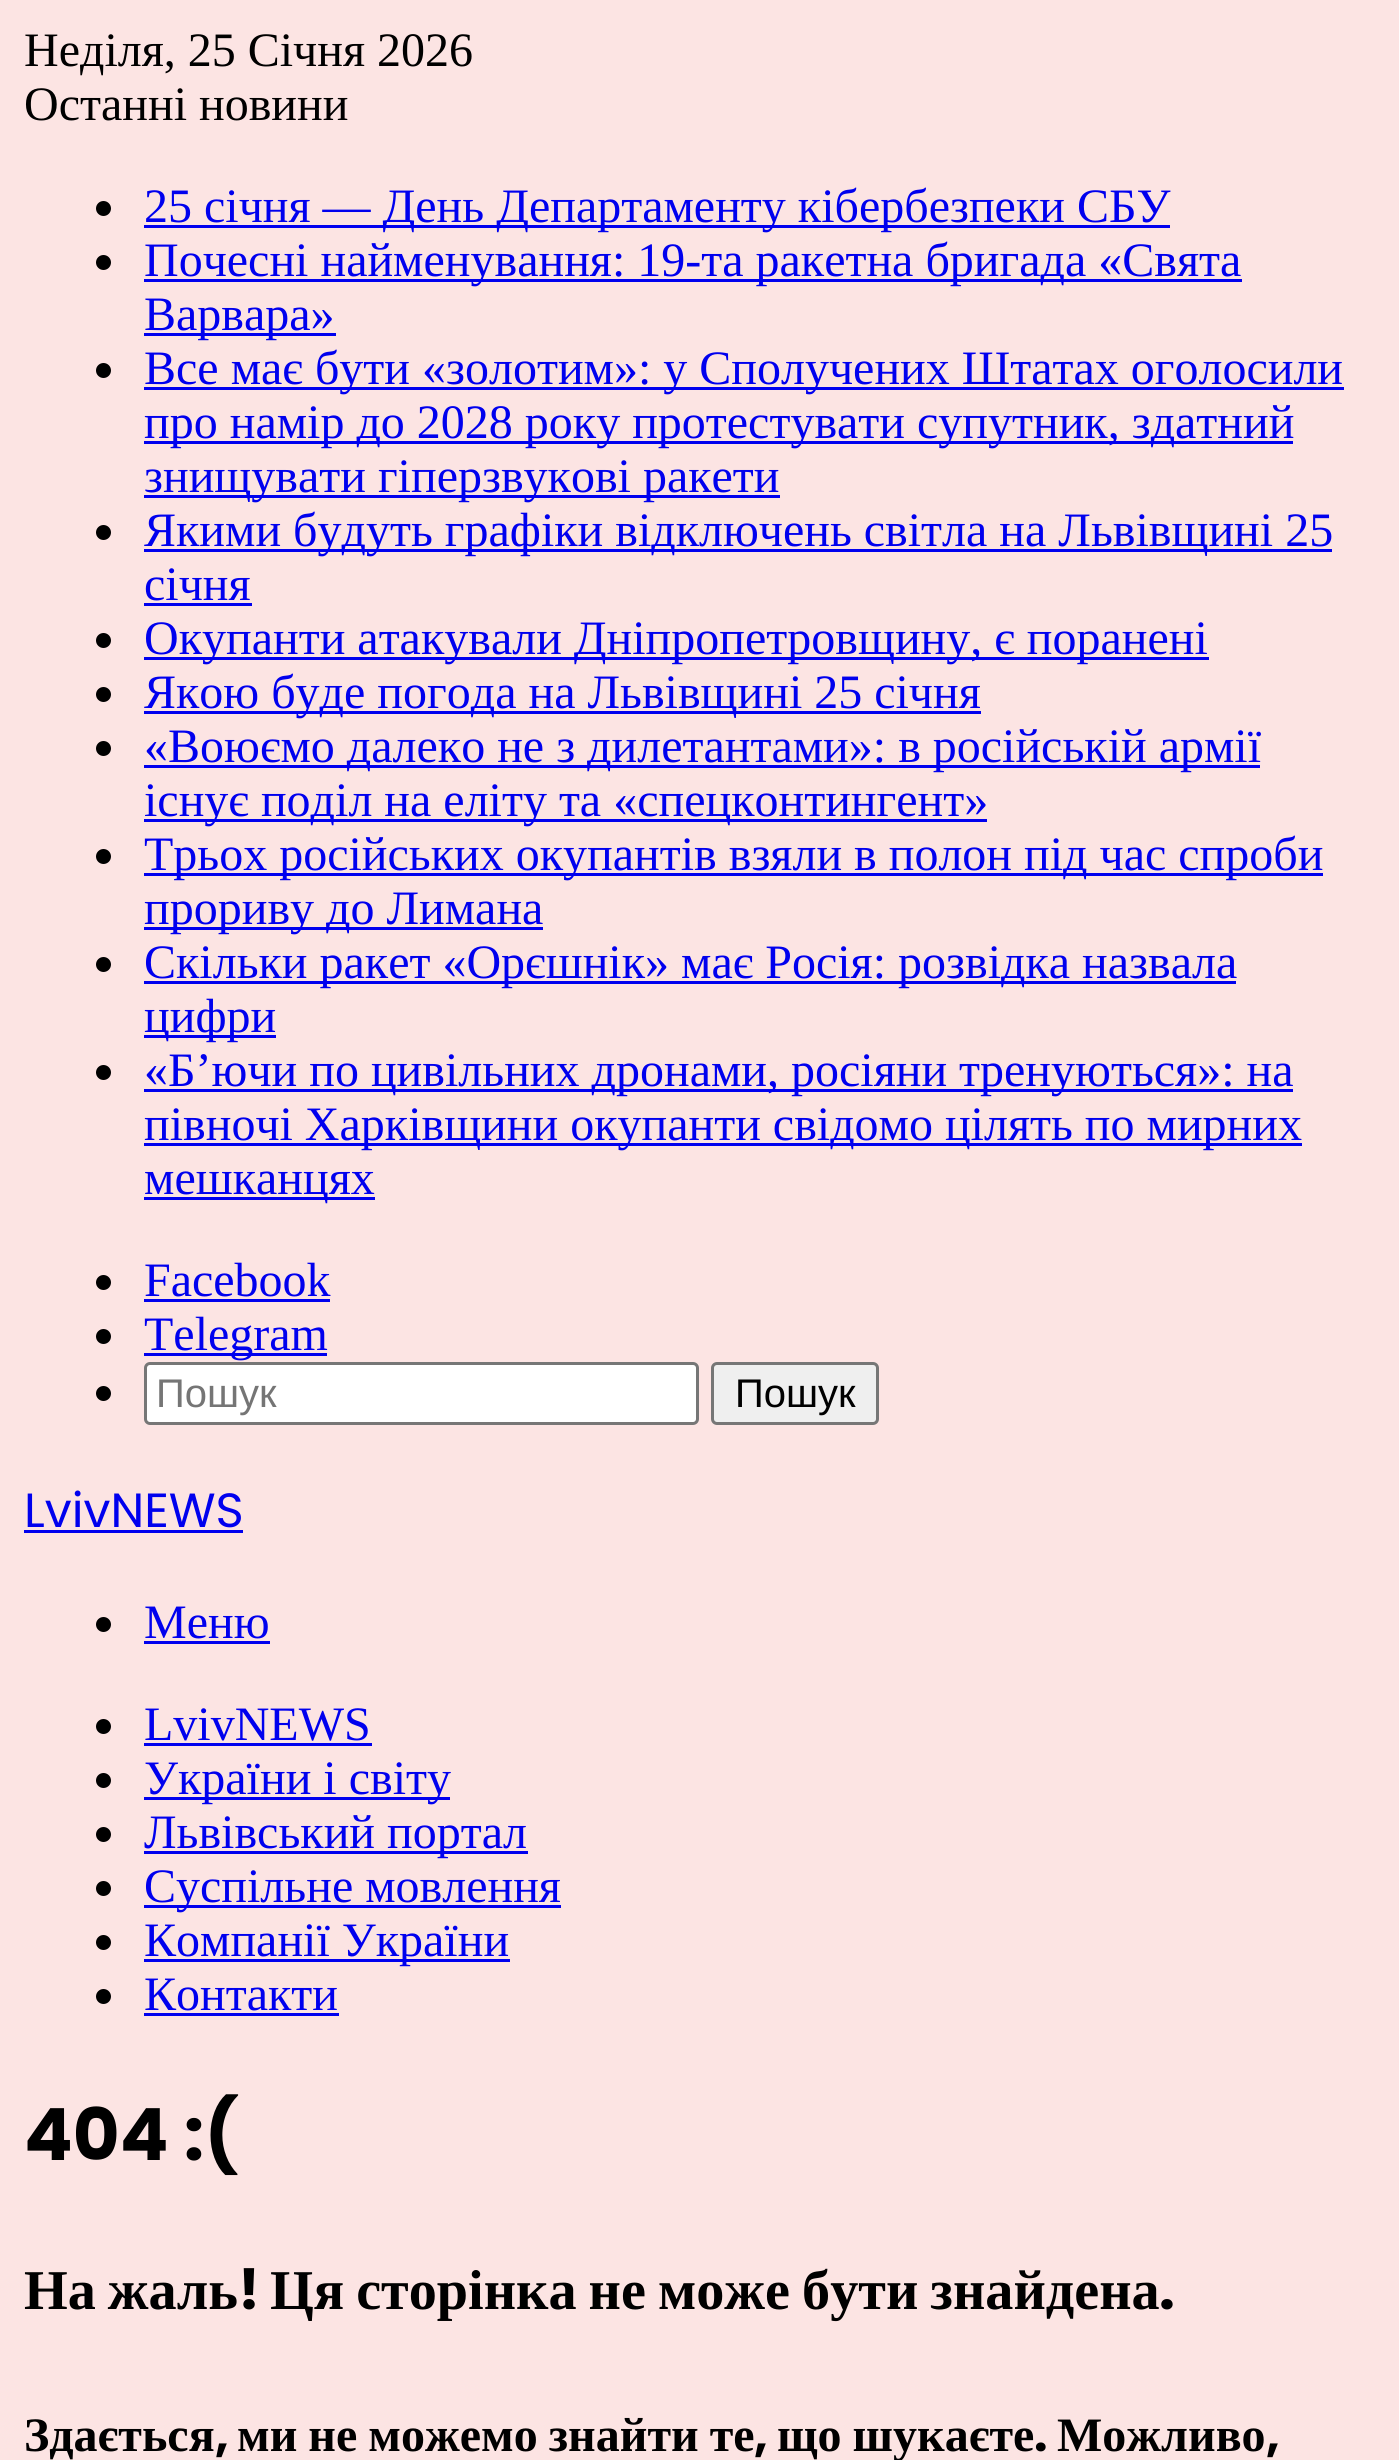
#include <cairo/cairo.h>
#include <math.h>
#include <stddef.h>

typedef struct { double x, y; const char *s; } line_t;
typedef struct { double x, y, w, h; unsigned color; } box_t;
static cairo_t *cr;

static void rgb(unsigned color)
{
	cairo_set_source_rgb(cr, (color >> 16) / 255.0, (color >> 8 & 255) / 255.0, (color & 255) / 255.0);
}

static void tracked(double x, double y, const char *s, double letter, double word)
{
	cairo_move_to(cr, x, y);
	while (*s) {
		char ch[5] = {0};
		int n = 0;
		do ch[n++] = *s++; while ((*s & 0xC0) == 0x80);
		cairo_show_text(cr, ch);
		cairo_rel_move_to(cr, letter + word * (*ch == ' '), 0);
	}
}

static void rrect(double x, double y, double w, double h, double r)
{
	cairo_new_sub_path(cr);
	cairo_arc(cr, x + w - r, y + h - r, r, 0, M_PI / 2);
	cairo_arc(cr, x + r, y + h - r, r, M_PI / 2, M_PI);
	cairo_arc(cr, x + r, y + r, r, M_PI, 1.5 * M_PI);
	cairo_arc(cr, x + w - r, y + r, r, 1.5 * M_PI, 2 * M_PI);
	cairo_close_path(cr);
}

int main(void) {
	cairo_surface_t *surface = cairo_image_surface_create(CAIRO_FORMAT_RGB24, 1399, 2460);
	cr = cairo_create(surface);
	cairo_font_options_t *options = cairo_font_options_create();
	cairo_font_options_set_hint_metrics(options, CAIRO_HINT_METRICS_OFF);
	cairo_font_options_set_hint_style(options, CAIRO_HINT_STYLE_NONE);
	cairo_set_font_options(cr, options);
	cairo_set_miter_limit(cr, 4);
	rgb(0xfce4e3);
	cairo_paint(cr);
	rgb(0x000000);
	cairo_arc(cr, 103.5, 208.5, 7.5, 0, 2 * M_PI);
	cairo_fill(cr);
	rgb(0x0000ee);
	cairo_rectangle(cr, 144, 225, 1026, 3);
	cairo_fill(cr);
	rgb(0x000000);
	cairo_arc(cr, 103.5, 262.5, 7.5, 0, 2 * M_PI);
	cairo_fill(cr);
	rgb(0x0000ee);
	cairo_rectangle(cr, 144, 279, 1098, 3);
	cairo_fill(cr);
	cairo_rectangle(cr, 144, 333, 192, 3);
	cairo_fill(cr);
	rgb(0x000000);
	cairo_arc(cr, 103.5, 370.5, 7.5, 0, 2 * M_PI);
	cairo_fill(cr);
	{
		static const box_t items[] = {
			{144, 387, 1200, 3, 0x0000ee},
			{144, 441, 1149, 3, 0x0000ee},
			{144, 495, 636, 3, 0x0000ee},
		};
		for (size_t i = 0; i < sizeof items / sizeof *items; i++) {
			rgb(items[i].color);
			cairo_rectangle(cr, items[i].x, items[i].y, items[i].w, items[i].h);
			cairo_fill(cr);
		}
	}
	rgb(0x000000);
	cairo_arc(cr, 103.5, 532.5, 7.5, 0, 2 * M_PI);
	cairo_fill(cr);
	rgb(0x0000ee);
	cairo_rectangle(cr, 144, 549, 1188, 3);
	cairo_fill(cr);
	cairo_rectangle(cr, 144, 603, 108, 3);
	cairo_fill(cr);
	rgb(0x000000);
	cairo_arc(cr, 103.5, 640.5, 7.5, 0, 2 * M_PI);
	cairo_fill(cr);
	rgb(0x0000ee);
	cairo_rectangle(cr, 144, 657, 1065, 3);
	cairo_fill(cr);
	rgb(0x000000);
	cairo_arc(cr, 103.5, 694.5, 7.5, 0, 2 * M_PI);
	cairo_fill(cr);
	rgb(0x0000ee);
	cairo_rectangle(cr, 144, 711, 837, 3);
	cairo_fill(cr);
	rgb(0x000000);
	cairo_arc(cr, 103.5, 748.5, 7.5, 0, 2 * M_PI);
	cairo_fill(cr);
	rgb(0x0000ee);
	cairo_rectangle(cr, 144, 765, 1116, 3);
	cairo_fill(cr);
	cairo_rectangle(cr, 144, 819, 843, 3);
	cairo_fill(cr);
	rgb(0x000000);
	cairo_arc(cr, 103.5, 856.5, 7.5, 0, 2 * M_PI);
	cairo_fill(cr);
	rgb(0x0000ee);
	cairo_rectangle(cr, 144, 873, 1179, 3);
	cairo_fill(cr);
	cairo_rectangle(cr, 144, 927, 399, 3);
	cairo_fill(cr);
	rgb(0x000000);
	cairo_arc(cr, 103.5, 964.5, 7.5, 0, 2 * M_PI);
	cairo_fill(cr);
	rgb(0x0000ee);
	cairo_rectangle(cr, 144, 981, 1092, 3);
	cairo_fill(cr);
	cairo_rectangle(cr, 144, 1035, 132, 3);
	cairo_fill(cr);
	rgb(0x000000);
	cairo_arc(cr, 103.5, 1072.5, 7.5, 0, 2 * M_PI);
	cairo_fill(cr);
	{
		static const box_t items[] = {
			{144, 1089, 1149, 3, 0x0000ee},
			{144, 1143, 1158, 3, 0x0000ee},
			{144, 1197, 231, 3, 0x0000ee},
		};
		for (size_t i = 0; i < sizeof items / sizeof *items; i++) {
			rgb(items[i].color);
			cairo_rectangle(cr, items[i].x, items[i].y, items[i].w, items[i].h);
			cairo_fill(cr);
		}
	}
	rgb(0x000000);
	cairo_arc(cr, 103.5, 1282.5, 7.5, 0, 2 * M_PI);
	cairo_fill(cr);
	rgb(0x0000ee);
	cairo_rectangle(cr, 144, 1299, 186, 3);
	cairo_fill(cr);
	rgb(0x000000);
	cairo_arc(cr, 103.5, 1336.5, 7.5, 0, 2 * M_PI);
	cairo_fill(cr);
	rgb(0x0000ee);
	cairo_rectangle(cr, 144, 1353, 183, 3);
	cairo_fill(cr);
	rgb(0x000000);
	cairo_arc(cr, 103.5, 1393.5, 7.5, 0, 2 * M_PI);
	cairo_fill(cr);
	rgb(0xffffff);
	rrect(145.5, 1363.5, 552, 60, 4.5);
	cairo_fill_preserve(cr);
	rgb(0x767676);
	cairo_set_line_width(cr, 3);
	cairo_stroke(cr);
	rgb(0xefefef);
	rrect(712.5, 1363.5, 165, 60, 4.5);
	cairo_fill_preserve(cr);
	rgb(0x767676);
	cairo_stroke(cr);
	rgb(0x0000ee);
	cairo_rectangle(cr, 24, 1530, 219, 3);
	cairo_fill(cr);
	rgb(0x000000);
	cairo_arc(cr, 103.5, 1624.5, 7.5, 0, 2 * M_PI);
	cairo_fill(cr);
	rgb(0x0000ee);
	cairo_rectangle(cr, 144, 1641, 126, 3);
	cairo_fill(cr);
	rgb(0x000000);
	cairo_arc(cr, 103.5, 1726.5, 7.5, 0, 2 * M_PI);
	cairo_fill(cr);
	rgb(0x0000ee);
	cairo_rectangle(cr, 144, 1743, 228, 3);
	cairo_fill(cr);
	rgb(0x000000);
	cairo_arc(cr, 103.5, 1780.5, 7.5, 0, 2 * M_PI);
	cairo_fill(cr);
	rgb(0x0000ee);
	cairo_rectangle(cr, 144, 1797, 306, 3);
	cairo_fill(cr);
	rgb(0x000000);
	cairo_arc(cr, 103.5, 1834.5, 7.5, 0, 2 * M_PI);
	cairo_fill(cr);
	rgb(0x0000ee);
	cairo_rectangle(cr, 144, 1851, 384, 3);
	cairo_fill(cr);
	rgb(0x000000);
	cairo_arc(cr, 103.5, 1888.5, 7.5, 0, 2 * M_PI);
	cairo_fill(cr);
	rgb(0x0000ee);
	cairo_rectangle(cr, 144, 1905, 417, 3);
	cairo_fill(cr);
	rgb(0x000000);
	cairo_arc(cr, 103.5, 1942.5, 7.5, 0, 2 * M_PI);
	cairo_fill(cr);
	rgb(0x0000ee);
	cairo_rectangle(cr, 144, 1959, 366, 3);
	cairo_fill(cr);
	rgb(0x000000);
	cairo_arc(cr, 103.5, 1996.5, 7.5, 0, 2 * M_PI);
	cairo_fill(cr);
	rgb(0x0000ee);
	cairo_rectangle(cr, 144, 2013, 195, 3);
	cairo_fill(cr);
	cairo_select_font_face(cr, "Liberation Serif", CAIRO_FONT_SLANT_NORMAL, CAIRO_FONT_WEIGHT_NORMAL);
	cairo_set_font_size(cr, 48);
	rgb(0x000000);
	cairo_move_to(cr, 24, 66);
	cairo_show_text(cr, "Неділя, 25 Січня 2026");
	cairo_move_to(cr, 24, 120);
	cairo_show_text(cr, "Останні новини");
	rgb(0x0000ee);
	{
		static const line_t items[] = {
			{144, 222, "25 січня — День Департаменту кібербезпеки СБУ"},
			{144, 276, "Почесні найменування: 19-та ракетна бригада «Свята"},
			{144, 330, "Варвара»"},
			{144, 384, "Все має бути «золотим»: у Сполучених Штатах оголосили"},
			{144, 438, "про намір до 2028 року протестувати супутник, здатний"},
			{144, 492, "знищувати гіперзвукові ракети"},
			{144, 546, "Якими будуть графіки відключень світла на Львівщині 25"},
			{144, 600, "січня"},
			{144, 654, "Окупанти атакували Дніпропетровщину, є поранені"},
			{144, 708, "Якою буде погода на Львівщині 25 січня"},
			{144, 762, "«Воюємо далеко не з дилетантами»: в російській армії"},
			{144, 816, "існує поділ на еліту та «спецконтингент»"},
			{144, 870, "Трьох російських окупантів взяли в полон під час спроби"},
			{144, 924, "прориву до Лимана"},
			{144, 978, "Скільки ракет «Орєшнік» має Росія: розвідка назвала"},
			{144, 1032, "цифри"},
			{144, 1086, "«Б’ючи по цивільних дронами, росіяни тренуються»: на"},
			{144, 1140, "півночі Харківщини окупанти свідомо цілять по мирних"},
			{144, 1194, "мешканцях"},
			{144, 1296, "Facebook"},
			{144, 1350, "Telegram"},
		};
		for (size_t i = 0; i < sizeof items / sizeof *items; i++) {
			cairo_move_to(cr, items[i].x, items[i].y);
			cairo_show_text(cr, items[i].s);
		}
	}
	cairo_select_font_face(cr, "Liberation Sans", CAIRO_FONT_SLANT_NORMAL, CAIRO_FONT_WEIGHT_NORMAL);
	cairo_set_font_size(cr, 40);
	rgb(0x757575);
	cairo_move_to(cr, 156, 1407);
	cairo_show_text(cr, "Пошук");
	rgb(0x000000);
	cairo_move_to(cr, 735, 1407);
	cairo_show_text(cr, "Пошук");
	cairo_select_font_face(cr, "Poppins", CAIRO_FONT_SLANT_NORMAL, CAIRO_FONT_WEIGHT_NORMAL);
	cairo_set_font_size(cr, 48);
	rgb(0x0000ee);
	cairo_move_to(cr, 24, 1527);
	cairo_show_text(cr, "LvivNEWS");
	cairo_select_font_face(cr, "Liberation Serif", CAIRO_FONT_SLANT_NORMAL, CAIRO_FONT_WEIGHT_NORMAL);
	{
		static const line_t items[] = {
			{144, 1638, "Меню"},
			{144, 1740, "LvivNEWS"},
			{144, 1794, "України і світу"},
			{144, 1848, "Львівський портал"},
			{144, 1902, "Суспільне мовлення"},
			{144, 1956, "Компанії України"},
			{144, 2010, "Контакти"},
		};
		for (size_t i = 0; i < sizeof items / sizeof *items; i++) {
			cairo_move_to(cr, items[i].x, items[i].y);
			cairo_show_text(cr, items[i].s);
		}
	}
	cairo_select_font_face(cr, "Poppins", CAIRO_FONT_SLANT_NORMAL, CAIRO_FONT_WEIGHT_BOLD);
	cairo_set_font_size(cr, 72);
	rgb(0x000000);
	cairo_move_to(cr, 24, 2160);
	cairo_show_text(cr, "404 :(");
	cairo_select_font_face(cr, "Liberation Serif", CAIRO_FONT_SLANT_NORMAL, CAIRO_FONT_WEIGHT_BOLD);
	cairo_set_font_size(cr, 56.2);
	tracked(24, 2309, "На жаль", 0, -2);
	cairo_select_font_face(cr, "Poppins", CAIRO_FONT_SLANT_NORMAL, CAIRO_FONT_WEIGHT_BOLD);
	cairo_move_to(cr, 238, 2309);
	cairo_show_text(cr, "!");
	cairo_select_font_face(cr, "Liberation Serif", CAIRO_FONT_SLANT_NORMAL, CAIRO_FONT_WEIGHT_BOLD);
	tracked(270, 2309, "Ця сторінка не може бути знайдена", 0, -2);
	cairo_select_font_face(cr, "Poppins", CAIRO_FONT_SLANT_NORMAL, CAIRO_FONT_WEIGHT_BOLD);
	cairo_move_to(cr, 1159, 2309);
	cairo_show_text(cr, ".");
	cairo_select_font_face(cr, "Liberation Serif", CAIRO_FONT_SLANT_NORMAL, CAIRO_FONT_WEIGHT_BOLD);
	cairo_set_font_size(cr, 48);
	cairo_move_to(cr, 24, 2451);
	cairo_show_text(cr, "Здається");
	cairo_select_font_face(cr, "Poppins", CAIRO_FONT_SLANT_NORMAL, CAIRO_FONT_WEIGHT_BOLD);
	cairo_move_to(cr, 215, 2451);
	cairo_show_text(cr, ",");
	cairo_select_font_face(cr, "Liberation Serif", CAIRO_FONT_SLANT_NORMAL, CAIRO_FONT_WEIGHT_BOLD);
	tracked(237, 2451, "ми не можемо знайти те", 0, -1);
	cairo_select_font_face(cr, "Poppins", CAIRO_FONT_SLANT_NORMAL, CAIRO_FONT_WEIGHT_BOLD);
	cairo_move_to(cr, 754, 2451);
	cairo_show_text(cr, ",");
	cairo_select_font_face(cr, "Liberation Serif", CAIRO_FONT_SLANT_NORMAL, CAIRO_FONT_WEIGHT_BOLD);
	tracked(777, 2451, "що шукаєте", 0, -1);
	cairo_select_font_face(cr, "Poppins", CAIRO_FONT_SLANT_NORMAL, CAIRO_FONT_WEIGHT_BOLD);
	cairo_move_to(cr, 1034, 2451);
	cairo_show_text(cr, ".");
	cairo_select_font_face(cr, "Liberation Serif", CAIRO_FONT_SLANT_NORMAL, CAIRO_FONT_WEIGHT_BOLD);
	cairo_move_to(cr, 1057, 2451);
	cairo_show_text(cr, "Можливо");
	cairo_select_font_face(cr, "Poppins", CAIRO_FONT_SLANT_NORMAL, CAIRO_FONT_WEIGHT_BOLD);
	cairo_move_to(cr, 1266, 2451);
	cairo_show_text(cr, ",");
	cairo_surface_write_to_png(surface, "page.png");
	cairo_font_options_destroy(options);
	cairo_destroy(cr);
	cairo_surface_destroy(surface);
	return 0;
}
